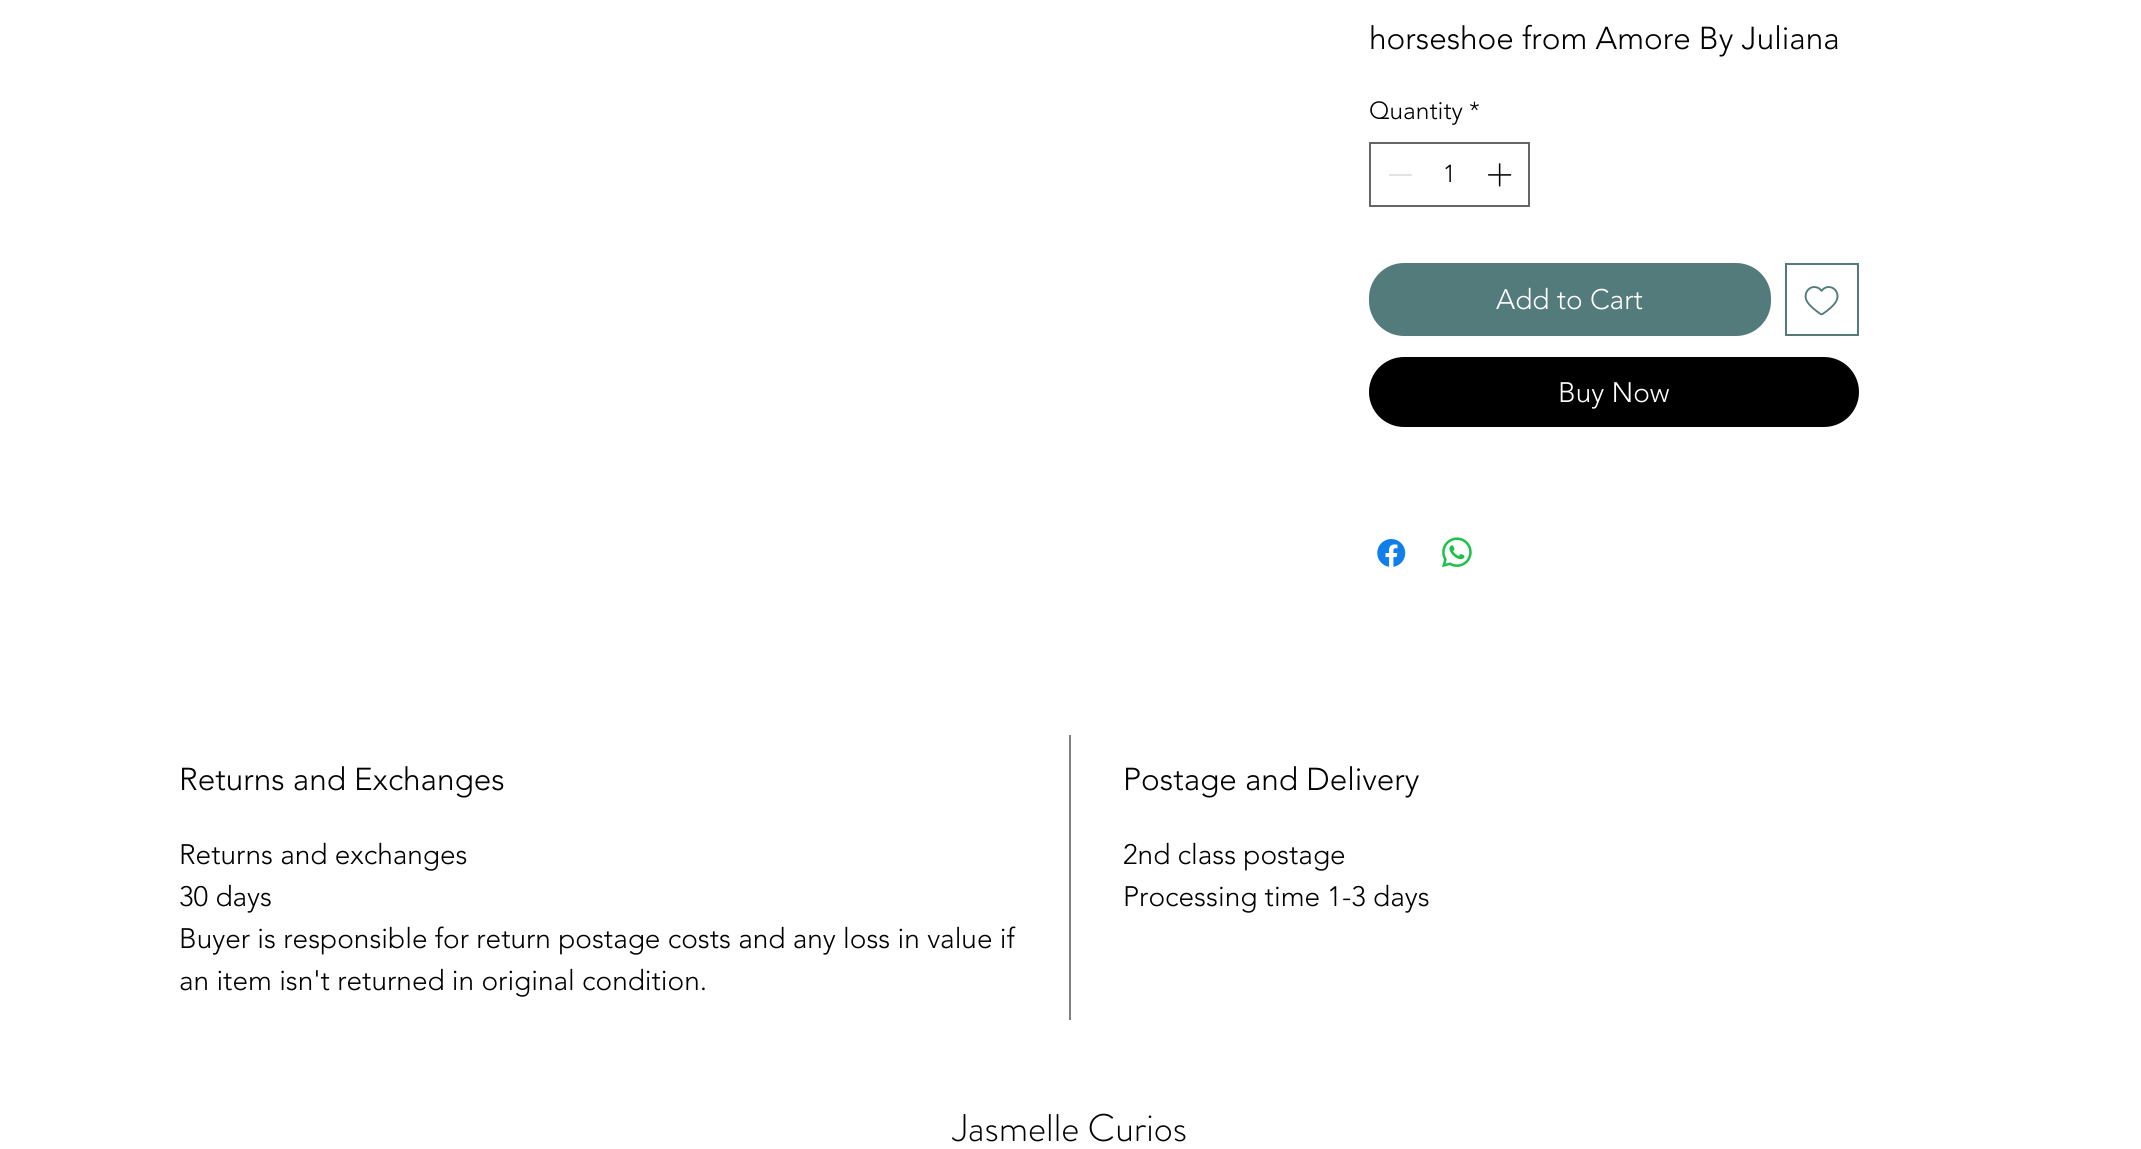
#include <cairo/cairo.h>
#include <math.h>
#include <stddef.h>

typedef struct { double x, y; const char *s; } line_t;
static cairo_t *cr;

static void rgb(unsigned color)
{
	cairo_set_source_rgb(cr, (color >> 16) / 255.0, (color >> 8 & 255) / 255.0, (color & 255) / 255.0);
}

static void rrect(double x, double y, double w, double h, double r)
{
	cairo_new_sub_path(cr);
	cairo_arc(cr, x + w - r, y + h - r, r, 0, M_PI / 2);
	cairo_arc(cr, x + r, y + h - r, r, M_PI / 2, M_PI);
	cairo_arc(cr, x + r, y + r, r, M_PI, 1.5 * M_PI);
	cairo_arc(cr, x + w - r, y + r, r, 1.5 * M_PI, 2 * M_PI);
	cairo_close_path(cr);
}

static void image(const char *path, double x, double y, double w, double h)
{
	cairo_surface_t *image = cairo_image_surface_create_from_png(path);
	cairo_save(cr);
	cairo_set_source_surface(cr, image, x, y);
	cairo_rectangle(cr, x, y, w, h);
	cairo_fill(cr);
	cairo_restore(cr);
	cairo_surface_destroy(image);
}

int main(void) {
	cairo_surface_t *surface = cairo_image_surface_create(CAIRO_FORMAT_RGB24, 2141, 1149);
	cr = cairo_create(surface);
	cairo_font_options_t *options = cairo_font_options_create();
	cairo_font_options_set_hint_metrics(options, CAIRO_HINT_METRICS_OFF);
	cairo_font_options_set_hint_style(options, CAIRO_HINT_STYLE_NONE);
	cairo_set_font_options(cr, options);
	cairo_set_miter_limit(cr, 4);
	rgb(0xffffff);
	cairo_paint(cr);
	cairo_rectangle(cr, 1370, 143, 159, 63);
	rgb(0x666666);
	cairo_stroke(cr);
	rgb(0xe3e3e3);
	cairo_rectangle(cr, 1389, 174, 23, 2);
	cairo_fill(cr);
	image("img/1.png", 1488, 163, 24, 24);
	rgb(0x537b7b);
	rrect(1369, 263, 402, 73, 35);
	cairo_fill(cr);
	cairo_rectangle(cr, 1786, 264, 72, 71);
	cairo_stroke(cr);
	image("img/2.png", 1804, 286, 35, 30);
	rgb(0x000000);
	rrect(1369, 357, 490, 70, 35);
	cairo_fill(cr);
	image("img/3.png", 1377, 539, 29, 28);
	image("img/4.png", 1442, 537, 30, 31);
	rgb(0x808080);
	cairo_rectangle(cr, 1069, 735, 2, 285);
	cairo_fill(cr);
	cairo_select_font_face(cr, "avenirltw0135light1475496 Light", CAIRO_FONT_SLANT_NORMAL, CAIRO_FONT_WEIGHT_NORMAL);
	cairo_set_font_size(cr, 31.5);
	rgb(0x000000);
	cairo_move_to(cr, 1369, 49);
	cairo_show_text(cr, "horseshoe from Amore By Juliana");
	cairo_set_font_size(cr, 24.5);
	{
		static const line_t items[] = {
			{1369, 119, "Quantity"},
			{1469, 119, "*"},
			{1443, 182, "1"},
		};
		for (size_t i = 0; i < sizeof items / sizeof *items; i++) {
			cairo_move_to(cr, items[i].x, items[i].y);
			cairo_show_text(cr, items[i].s);
		}
	}
	cairo_set_font_size(cr, 28);
	rgb(0xffffff);
	cairo_move_to(cr, 1496, 309);
	cairo_show_text(cr, "Add to Cart");
	cairo_move_to(cr, 1558, 402);
	cairo_show_text(cr, "Buy Now");
	cairo_set_font_size(cr, 31.5);
	rgb(0x000000);
	cairo_move_to(cr, 179, 790);
	cairo_show_text(cr, "Returns and Exchanges");
	cairo_set_font_size(cr, 28);
	{
		static const line_t items[] = {
			{179, 864, "Returns and exchanges"},
			{179, 906, "30 days"},
			{179, 948, "Buyer is responsible for return postage costs and any loss in value if"},
			{179, 990, "an item isn't returned in original condition."},
		};
		for (size_t i = 0; i < sizeof items / sizeof *items; i++) {
			cairo_move_to(cr, items[i].x, items[i].y);
			cairo_show_text(cr, items[i].s);
		}
	}
	cairo_set_font_size(cr, 31.5);
	cairo_move_to(cr, 1123, 790);
	cairo_show_text(cr, "Postage and Delivery");
	cairo_set_font_size(cr, 28);
	cairo_move_to(cr, 1123, 864);
	cairo_show_text(cr, "2nd class postage");
	cairo_move_to(cr, 1123, 906);
	cairo_show_text(cr, "Processing time 1-3 days");
	cairo_select_font_face(cr, "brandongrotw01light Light", CAIRO_FONT_SLANT_NORMAL, CAIRO_FONT_WEIGHT_NORMAL);
	cairo_set_font_size(cr, 38.5);
	cairo_move_to(cr, 953, 1141);
	cairo_show_text(cr, "Jasmelle Curios");
	cairo_surface_write_to_png(surface, "page.png");
	cairo_font_options_destroy(options);
	cairo_destroy(cr);
	cairo_surface_destroy(surface);
	return 0;
}
